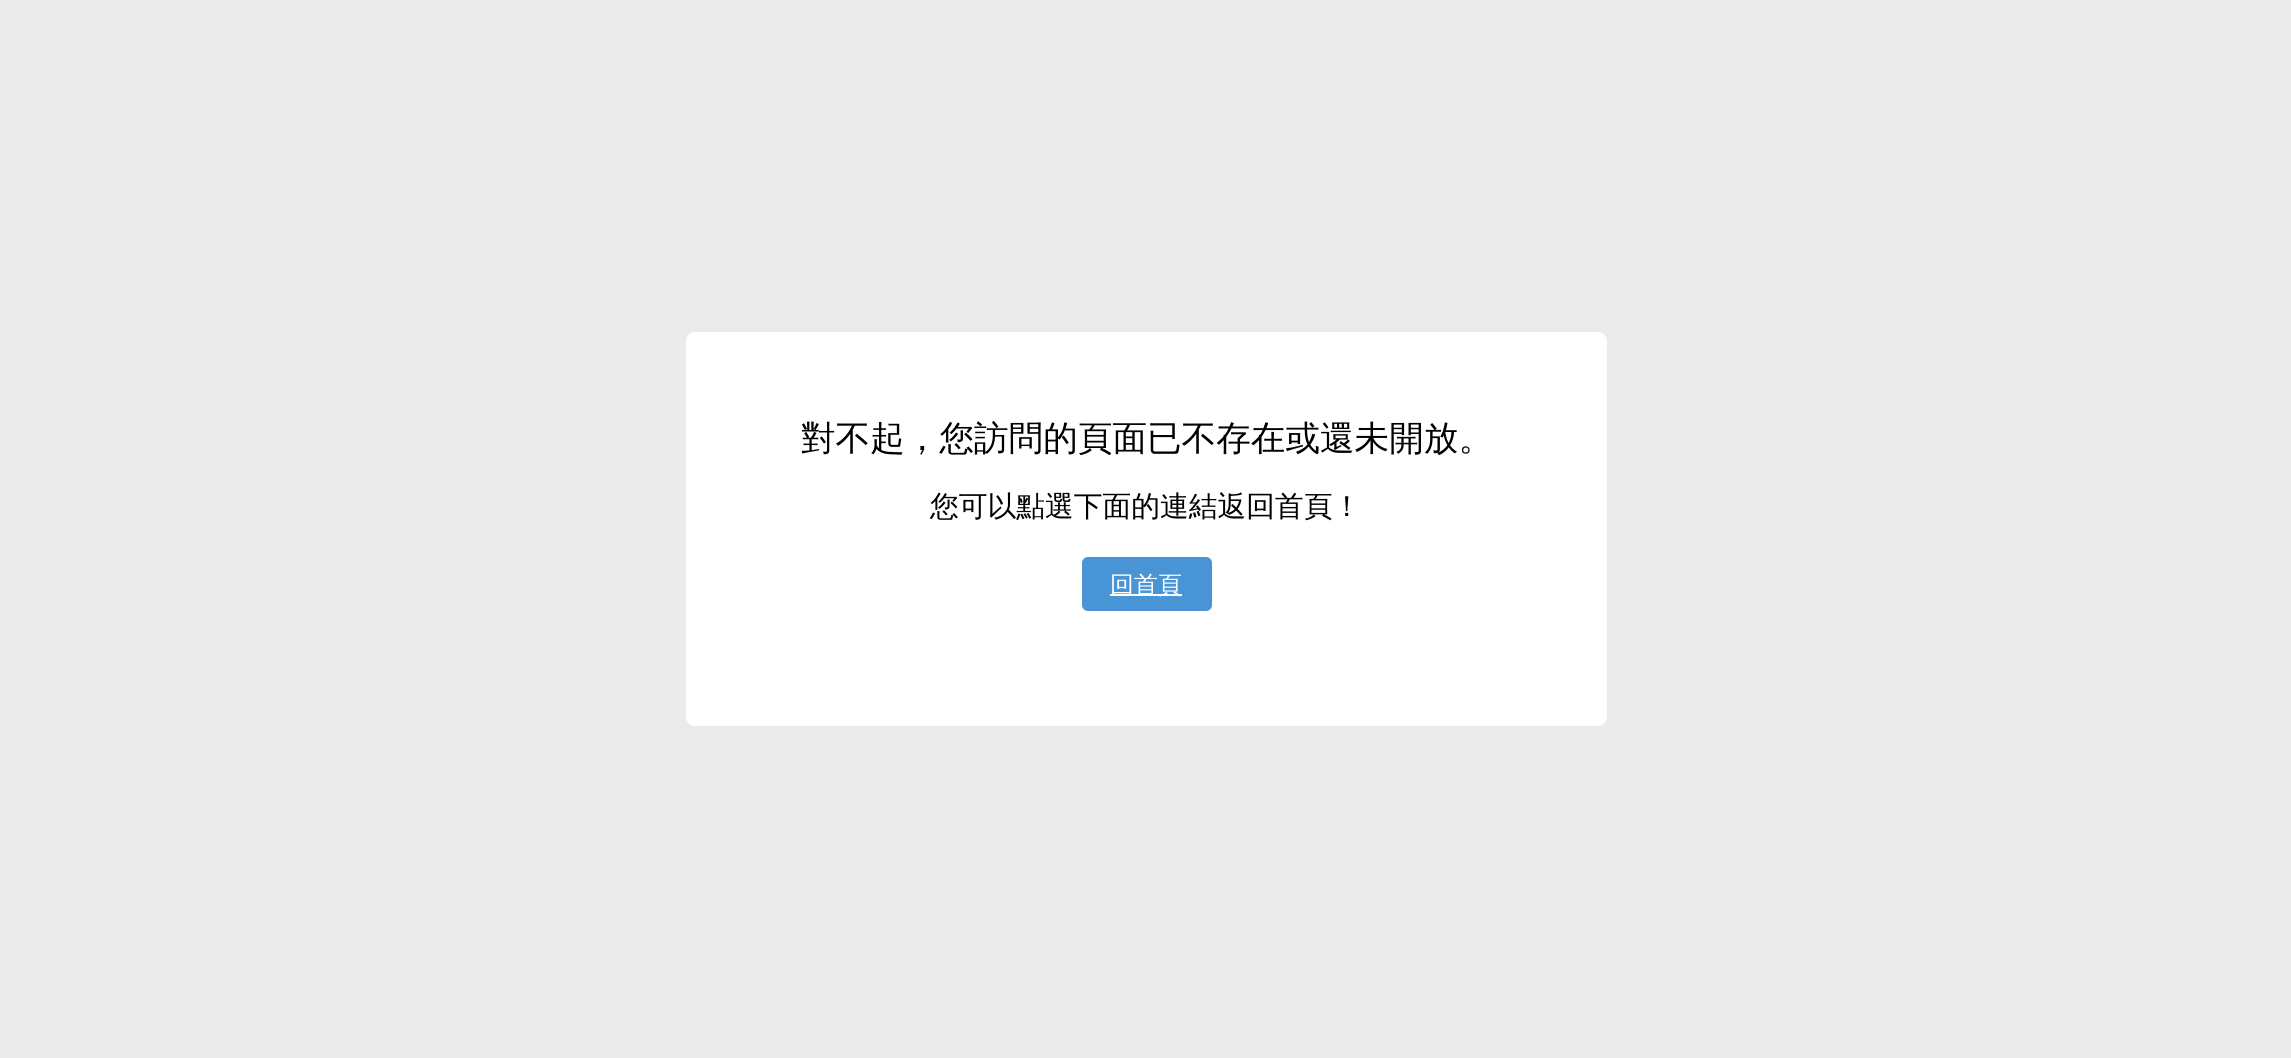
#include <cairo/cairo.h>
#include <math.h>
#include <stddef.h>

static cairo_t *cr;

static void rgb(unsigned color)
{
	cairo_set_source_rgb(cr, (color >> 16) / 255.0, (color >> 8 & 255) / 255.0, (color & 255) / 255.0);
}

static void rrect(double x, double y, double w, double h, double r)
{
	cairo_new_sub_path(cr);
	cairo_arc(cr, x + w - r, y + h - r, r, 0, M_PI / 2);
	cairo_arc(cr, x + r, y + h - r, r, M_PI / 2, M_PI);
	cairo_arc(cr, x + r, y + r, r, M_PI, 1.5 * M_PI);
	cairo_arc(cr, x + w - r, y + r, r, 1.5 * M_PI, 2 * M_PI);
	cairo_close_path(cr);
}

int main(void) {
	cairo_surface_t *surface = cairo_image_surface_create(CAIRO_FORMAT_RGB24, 2291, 1058);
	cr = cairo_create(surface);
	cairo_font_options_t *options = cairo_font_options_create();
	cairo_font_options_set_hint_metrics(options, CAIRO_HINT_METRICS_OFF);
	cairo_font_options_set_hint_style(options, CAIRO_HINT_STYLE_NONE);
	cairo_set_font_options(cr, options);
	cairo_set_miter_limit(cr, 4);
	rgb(0xebebeb);
	cairo_paint(cr);
	rgb(0xffffff);
	rrect(686, 332, 921, 394, 9);
	cairo_fill(cr);
	rgb(0x4894d4);
	rrect(1082, 557, 130, 54, 6);
	cairo_fill(cr);
	rgb(0xffffff);
	cairo_rectangle(cr, 1110, 594, 72, 2);
	cairo_fill(cr);
	cairo_select_font_face(cr, "WenQuanYi Zen Hei Medium", CAIRO_FONT_SLANT_NORMAL, CAIRO_FONT_WEIGHT_NORMAL);
	cairo_set_font_size(cr, 34.6);
	rgb(0x000000);
	cairo_move_to(cr, 801, 450);
	cairo_show_text(cr, "對不起，您訪問的頁面已不存在或還未開放。");
	cairo_set_font_size(cr, 28.75);
	cairo_move_to(cr, 930, 516);
	cairo_show_text(cr, "您可以點選下面的連結返回首頁！");
	cairo_set_font_size(cr, 24);
	rgb(0xffffff);
	cairo_move_to(cr, 1110, 593);
	cairo_show_text(cr, "回首頁");
	cairo_surface_write_to_png(surface, "page.png");
	cairo_font_options_destroy(options);
	cairo_destroy(cr);
	cairo_surface_destroy(surface);
	return 0;
}
